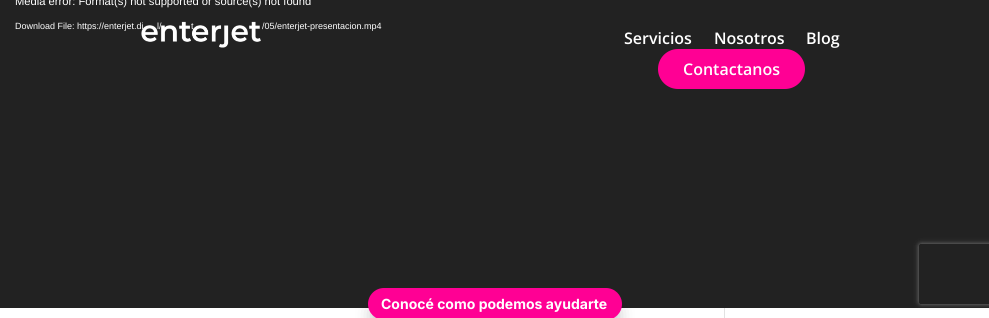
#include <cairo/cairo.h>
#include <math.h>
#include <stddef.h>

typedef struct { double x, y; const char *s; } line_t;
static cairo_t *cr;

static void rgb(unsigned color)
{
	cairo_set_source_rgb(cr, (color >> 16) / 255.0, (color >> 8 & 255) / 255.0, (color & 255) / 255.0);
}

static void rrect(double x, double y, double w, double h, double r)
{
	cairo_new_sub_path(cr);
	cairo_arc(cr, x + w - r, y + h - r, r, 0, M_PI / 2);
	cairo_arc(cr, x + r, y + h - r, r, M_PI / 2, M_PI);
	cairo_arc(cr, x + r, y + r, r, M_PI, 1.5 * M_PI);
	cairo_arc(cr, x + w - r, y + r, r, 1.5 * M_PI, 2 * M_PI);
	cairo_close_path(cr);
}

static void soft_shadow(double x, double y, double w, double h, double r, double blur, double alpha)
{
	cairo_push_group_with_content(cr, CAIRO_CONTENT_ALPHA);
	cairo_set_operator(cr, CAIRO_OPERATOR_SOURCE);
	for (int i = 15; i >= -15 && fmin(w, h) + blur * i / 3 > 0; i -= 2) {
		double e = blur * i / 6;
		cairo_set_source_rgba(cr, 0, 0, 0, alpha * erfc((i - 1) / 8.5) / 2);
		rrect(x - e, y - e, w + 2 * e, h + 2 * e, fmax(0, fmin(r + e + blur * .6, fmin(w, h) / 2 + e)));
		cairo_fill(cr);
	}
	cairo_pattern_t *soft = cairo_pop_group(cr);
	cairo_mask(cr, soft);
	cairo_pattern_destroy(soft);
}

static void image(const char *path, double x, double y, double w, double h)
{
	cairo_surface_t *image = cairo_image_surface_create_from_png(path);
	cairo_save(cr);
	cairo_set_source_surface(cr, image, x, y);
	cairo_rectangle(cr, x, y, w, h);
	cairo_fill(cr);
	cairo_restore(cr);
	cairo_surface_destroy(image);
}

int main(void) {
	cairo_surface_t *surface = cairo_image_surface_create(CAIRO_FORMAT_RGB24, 989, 318);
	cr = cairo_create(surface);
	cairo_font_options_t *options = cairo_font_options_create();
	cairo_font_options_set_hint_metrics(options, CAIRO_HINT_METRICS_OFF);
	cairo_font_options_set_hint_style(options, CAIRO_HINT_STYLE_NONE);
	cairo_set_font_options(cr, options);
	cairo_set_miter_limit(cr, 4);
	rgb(0xffffff);
	cairo_paint(cr);
	rgb(0x222222);
	cairo_rectangle(cr, 0, 0, 989, 308);
	cairo_fill(cr);
	rgb(0xff0094);
	rrect(658, 49, 147, 40, 20);
	cairo_fill(cr);
	rgb(0x000000);
	soft_shadow(374, 306, 242, 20, 10, 9, 0.3);
	rgb(0xff0094);
	rrect(368, 288, 254, 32, 16);
	cairo_fill(cr);
	rgb(0xe2e2e2);
	cairo_rectangle(cr, 724, 308, 1, 10);
	cairo_fill(cr);
	cairo_save(cr);
	cairo_set_fill_rule(cr, CAIRO_FILL_RULE_EVEN_ODD);
	cairo_new_path(cr);
	cairo_move_to(cr, 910, 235);
	cairo_line_to(cr, 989, 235);
	cairo_line_to(cr, 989, 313);
	cairo_line_to(cr, 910, 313);
	cairo_close_path(cr);
	cairo_move_to(cr, 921, 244);
	cairo_line_to(cr, 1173, 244);
	cairo_curve_to(cr, 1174, 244, 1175, 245, 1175, 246);
	cairo_line_to(cr, 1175, 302);
	cairo_curve_to(cr, 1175, 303, 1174, 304, 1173, 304);
	cairo_line_to(cr, 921, 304);
	cairo_curve_to(cr, 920, 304, 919, 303, 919, 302);
	cairo_line_to(cr, 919, 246);
	cairo_curve_to(cr, 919, 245, 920, 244, 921, 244);
	cairo_close_path(cr);
	cairo_clip(cr);
	rgb(0x808080);
	soft_shadow(919, 244, 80, 60, 2, 2.5, 1);
	cairo_restore(cr);
	cairo_select_font_face(cr, "Liberation Sans", CAIRO_FONT_SLANT_NORMAL, CAIRO_FONT_WEIGHT_NORMAL);
	cairo_set_font_size(cr, 11.2);
	rgb(0xffffff);
	cairo_move_to(cr, 15, 5);
	cairo_show_text(cr, "Media error: Format(s) not supported or source(s) not found");
	cairo_set_font_size(cr, 9);
	{
		static const line_t items[] = {
			{15, 29, "Download File: https://enterjet.di"},
			{157, 29, "l/"},
			{191, 29, "t"},
			{262, 29, "/05/enterjet-presentacion.mp4"},
		};
		for (size_t i = 0; i < sizeof items / sizeof *items; i++) {
			cairo_move_to(cr, items[i].x, items[i].y);
			cairo_show_text(cr, items[i].s);
		}
	}
	image("img/1.png", 141, 21, 120, 27);
	cairo_select_font_face(cr, "Open Sans SemiBold", CAIRO_FONT_SLANT_NORMAL, CAIRO_FONT_WEIGHT_NORMAL);
	cairo_set_font_size(cr, 16);
	{
		static const line_t items[] = {
			{624, 44, "Servicios"},
			{714, 44, "Nosotros"},
			{806, 44, "Blog"},
			{683, 75, "Contactanos"},
		};
		for (size_t i = 0; i < sizeof items / sizeof *items; i++) {
			cairo_move_to(cr, items[i].x, items[i].y);
			cairo_show_text(cr, items[i].s);
		}
	}
	cairo_select_font_face(cr, "Inter", CAIRO_FONT_SLANT_NORMAL, CAIRO_FONT_WEIGHT_BOLD);
	cairo_set_font_size(cr, 14);
	cairo_move_to(cr, 381, 309);
	cairo_show_text(cr, "Conocé como podemos ayudarte");
	cairo_surface_write_to_png(surface, "page.png");
	cairo_font_options_destroy(options);
	cairo_destroy(cr);
	cairo_surface_destroy(surface);
	return 0;
}
